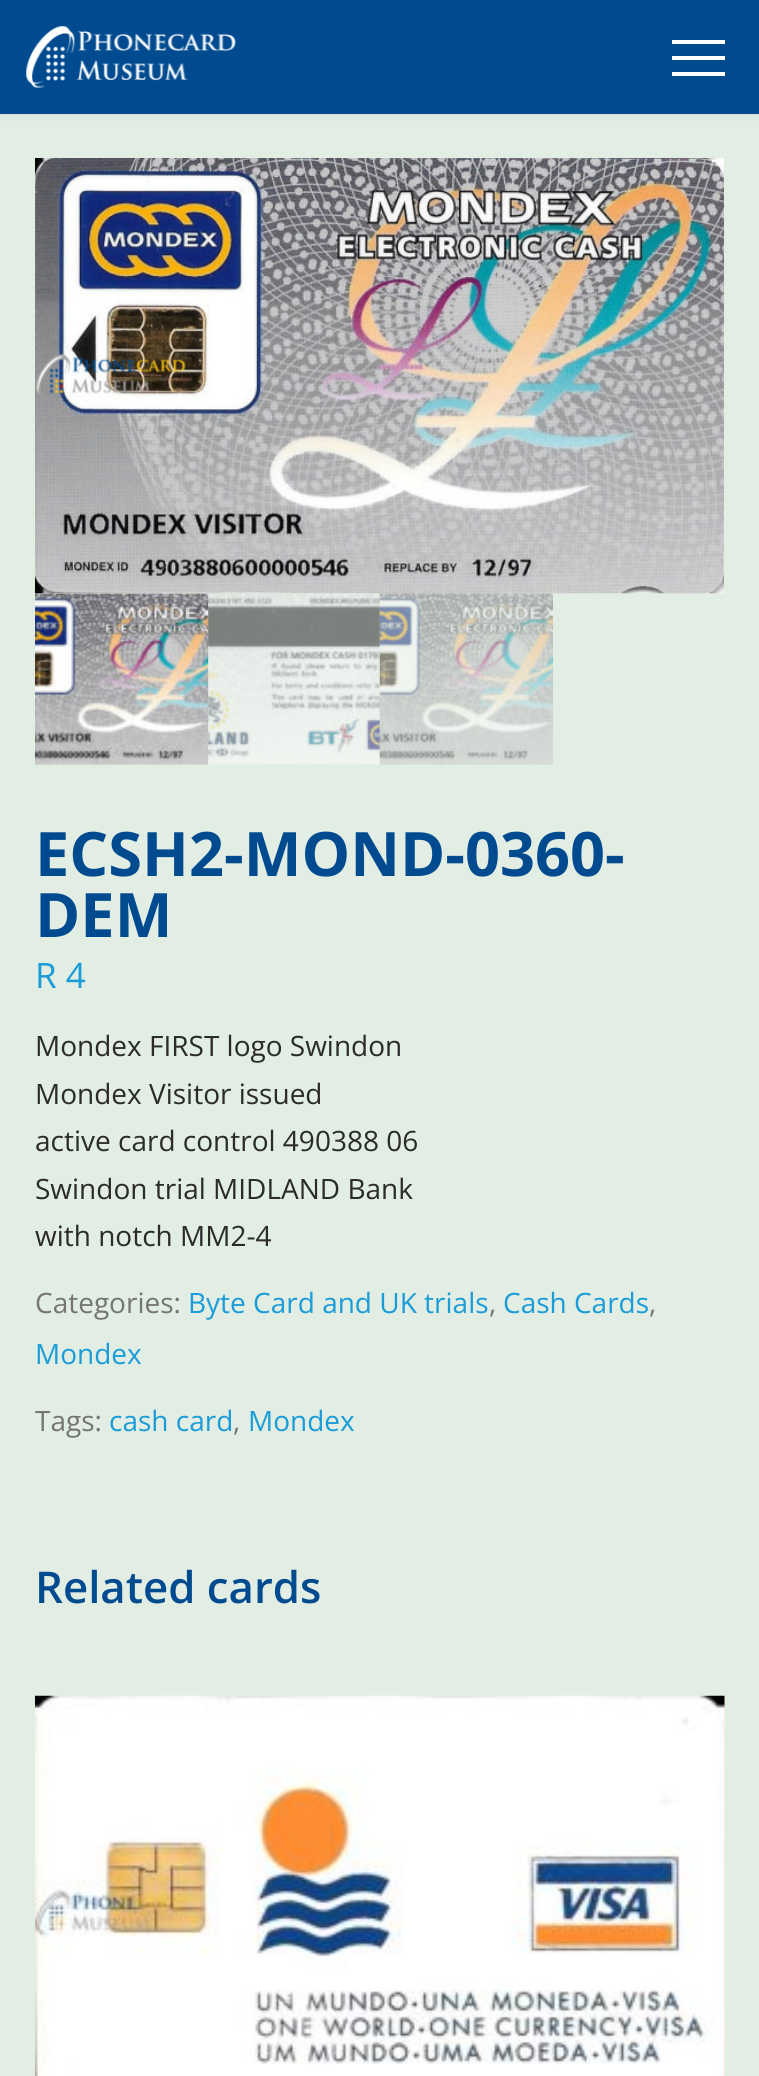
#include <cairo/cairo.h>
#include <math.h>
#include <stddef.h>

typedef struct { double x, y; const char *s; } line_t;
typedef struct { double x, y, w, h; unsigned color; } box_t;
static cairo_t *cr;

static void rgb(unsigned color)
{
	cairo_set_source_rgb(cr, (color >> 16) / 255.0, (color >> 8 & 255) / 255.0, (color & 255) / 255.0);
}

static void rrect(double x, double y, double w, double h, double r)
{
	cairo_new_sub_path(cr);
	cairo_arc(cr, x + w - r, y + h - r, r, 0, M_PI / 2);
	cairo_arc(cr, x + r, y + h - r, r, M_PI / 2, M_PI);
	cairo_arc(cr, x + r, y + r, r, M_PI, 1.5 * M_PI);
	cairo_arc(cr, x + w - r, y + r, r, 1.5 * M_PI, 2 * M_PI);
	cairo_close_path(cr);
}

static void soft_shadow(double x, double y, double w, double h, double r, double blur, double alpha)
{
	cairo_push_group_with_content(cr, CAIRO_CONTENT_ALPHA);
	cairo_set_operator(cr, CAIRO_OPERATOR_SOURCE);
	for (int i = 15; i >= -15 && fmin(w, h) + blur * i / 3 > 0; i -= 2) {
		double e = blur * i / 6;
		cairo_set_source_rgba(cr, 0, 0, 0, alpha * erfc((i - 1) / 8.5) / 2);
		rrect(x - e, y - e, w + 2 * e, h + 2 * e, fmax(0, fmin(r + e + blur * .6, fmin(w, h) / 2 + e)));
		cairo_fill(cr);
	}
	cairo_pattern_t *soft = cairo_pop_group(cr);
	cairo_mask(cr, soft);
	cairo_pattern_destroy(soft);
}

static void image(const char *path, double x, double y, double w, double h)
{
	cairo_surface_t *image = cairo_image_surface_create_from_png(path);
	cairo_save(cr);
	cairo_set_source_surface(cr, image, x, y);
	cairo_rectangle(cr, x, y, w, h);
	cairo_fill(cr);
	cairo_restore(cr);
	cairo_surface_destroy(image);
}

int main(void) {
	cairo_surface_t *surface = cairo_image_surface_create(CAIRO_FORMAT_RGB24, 759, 2076);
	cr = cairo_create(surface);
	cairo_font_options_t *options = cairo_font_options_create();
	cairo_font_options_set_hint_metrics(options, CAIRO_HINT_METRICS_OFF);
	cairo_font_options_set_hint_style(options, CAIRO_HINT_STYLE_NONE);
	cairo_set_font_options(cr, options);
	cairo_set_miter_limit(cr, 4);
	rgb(0xe2ede4);
	cairo_paint(cr);
	rgb(0x666666);
	soft_shadow(-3, -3, 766, 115, 0, 5, 0.22);
	rgb(0x004b90);
	cairo_rectangle(cr, 0, 0, 759, 114);
	cairo_fill(cr);
	image("img/1.png", 26, 26, 210, 62);
	{
		static const box_t items[] = {
			{672, 40, 53, 4, 0xffffff},
			{672, 56, 53, 4, 0xffffff},
			{672, 72, 53, 4, 0xffffff},
		};
		for (size_t i = 0; i < sizeof items / sizeof *items; i++) {
			rgb(items[i].color);
			cairo_rectangle(cr, items[i].x, items[i].y, items[i].w, items[i].h);
			cairo_fill(cr);
		}
	}
	image("img/3.png", 35, 593, 174, 172);
	image("img/2.png", 35, 158, 689, 436);
	image("img/4.png", 208, 593, 172, 172);
	image("img/5.png", 379, 593, 174, 172);
	rgb(0xf6e9ca);
	cairo_rectangle(cr, 724, 1696, 1, 380);
	cairo_fill(cr);
	image("img/6.png", 35, 1695, 690, 381);
	cairo_select_font_face(cr, "Open Sans", CAIRO_FONT_SLANT_NORMAL, CAIRO_FONT_WEIGHT_BOLD);
	cairo_set_font_size(cr, 61.25);
	rgb(0x004b90);
	cairo_move_to(cr, 35, 876);
	cairo_show_text(cr, "ECSH2-MOND-0360-");
	cairo_move_to(cr, 35, 937);
	cairo_show_text(cr, "DEM");
	cairo_select_font_face(cr, "Open Sans", CAIRO_FONT_SLANT_NORMAL, CAIRO_FONT_WEIGHT_NORMAL);
	cairo_set_font_size(cr, 35);
	rgb(0x199cd8);
	cairo_move_to(cr, 35, 988);
	cairo_show_text(cr, "R 4");
	cairo_set_font_size(cr, 28);
	rgb(0x2b2b2b);
	{
		static const line_t items[] = {
			{35, 1056, "Mondex FIRST logo Swindon"},
			{35, 1104, "Mondex Visitor issued"},
			{35, 1151, "active card control 490388 06"},
			{35, 1199, "Swindon trial MIDLAND Bank"},
			{35, 1246, "with notch MM2-4"},
		};
		for (size_t i = 0; i < sizeof items / sizeof *items; i++) {
			cairo_move_to(cr, items[i].x, items[i].y);
			cairo_show_text(cr, items[i].s);
		}
	}
	rgb(0x757575);
	cairo_move_to(cr, 35, 1313);
	cairo_show_text(cr, "Categories:");
	rgb(0x199cd8);
	cairo_move_to(cr, 188, 1313);
	cairo_show_text(cr, "Byte Card and UK trials");
	rgb(0x757575);
	cairo_move_to(cr, 489, 1313);
	cairo_show_text(cr, ",");
	rgb(0x199cd8);
	cairo_move_to(cr, 503, 1313);
	cairo_show_text(cr, "Cash Cards");
	rgb(0x757575);
	cairo_move_to(cr, 649, 1313);
	cairo_show_text(cr, ",");
	rgb(0x199cd8);
	cairo_move_to(cr, 35, 1364);
	cairo_show_text(cr, "Mondex");
	rgb(0x757575);
	cairo_move_to(cr, 35, 1431);
	cairo_show_text(cr, "Tags:");
	rgb(0x199cd8);
	cairo_move_to(cr, 109, 1431);
	cairo_show_text(cr, "cash card");
	rgb(0x757575);
	cairo_move_to(cr, 233, 1431);
	cairo_show_text(cr, ",");
	rgb(0x199cd8);
	cairo_move_to(cr, 248, 1431);
	cairo_show_text(cr, "Mondex");
	cairo_select_font_face(cr, "Open Sans SemiBold", CAIRO_FONT_SLANT_NORMAL, CAIRO_FONT_WEIGHT_NORMAL);
	cairo_set_font_size(cr, 43.75);
	rgb(0x004b90);
	cairo_move_to(cr, 35, 1603);
	cairo_show_text(cr, "Related cards");
	cairo_surface_write_to_png(surface, "page.png");
	cairo_font_options_destroy(options);
	cairo_destroy(cr);
	cairo_surface_destroy(surface);
	return 0;
}
